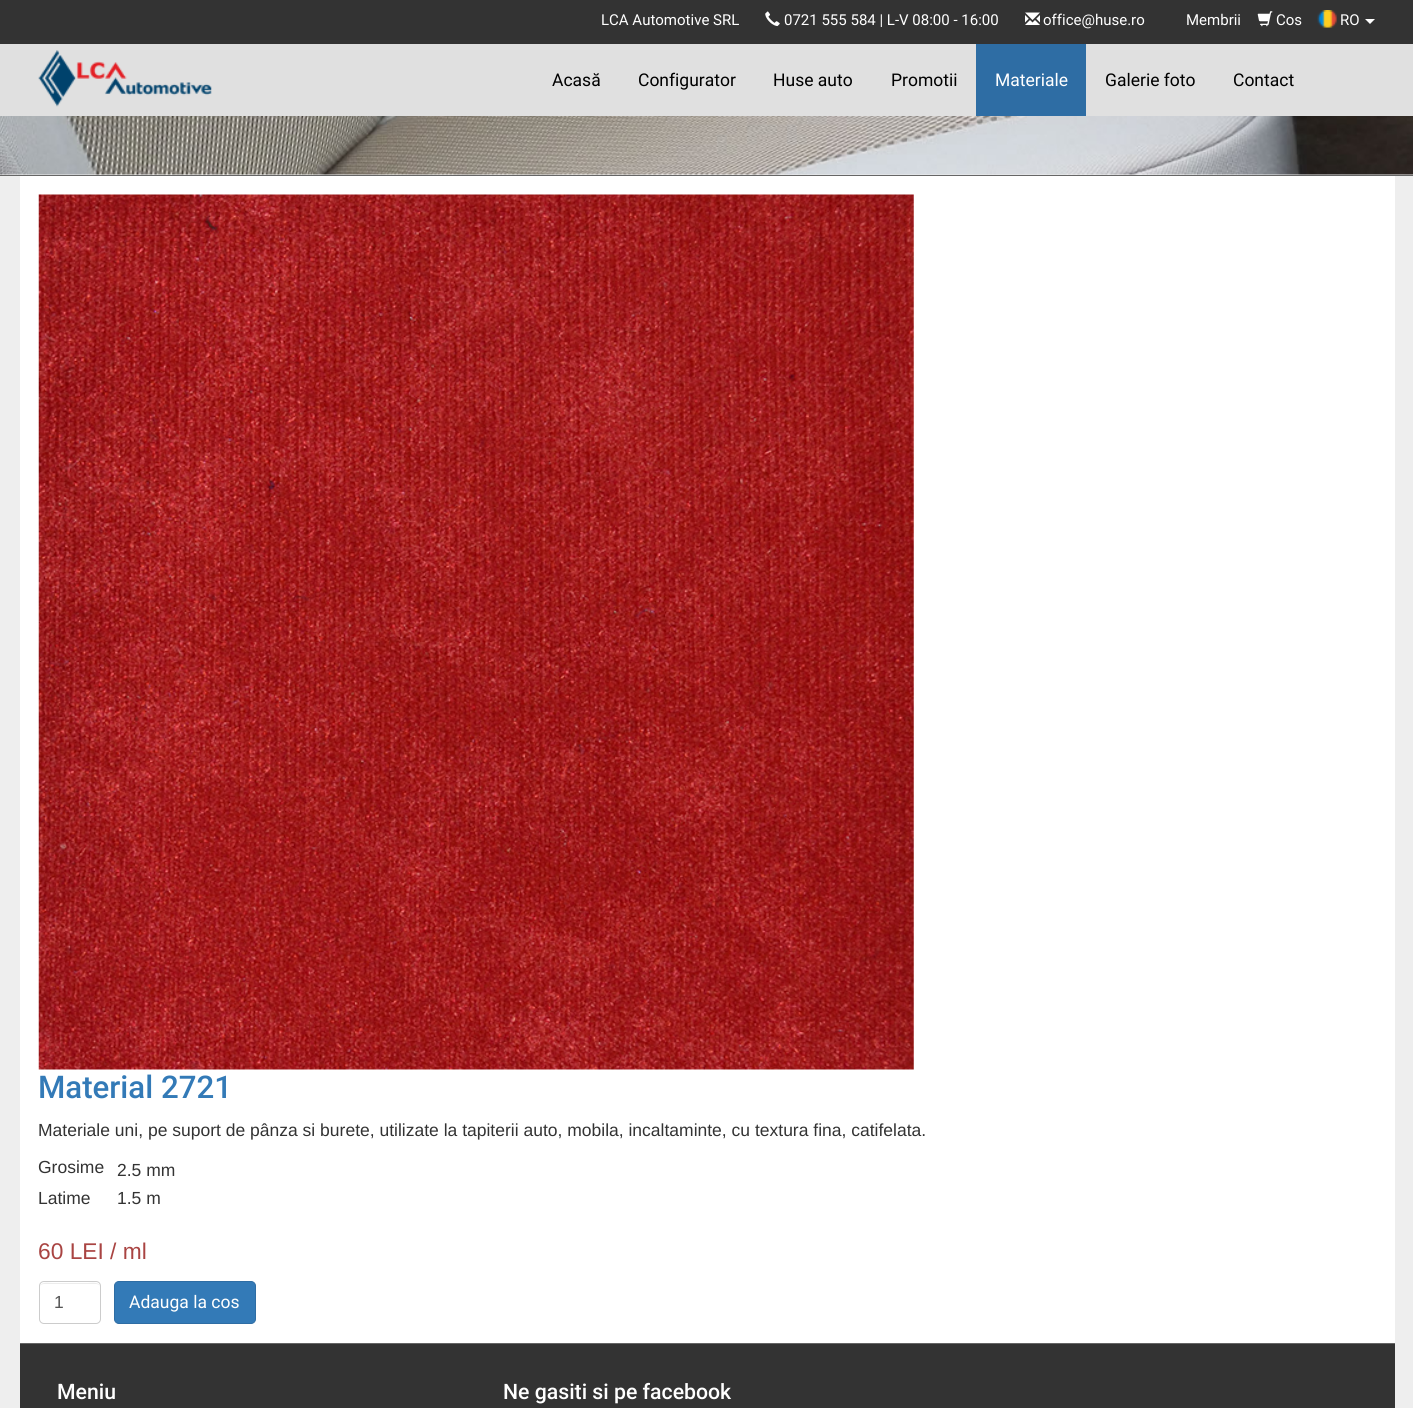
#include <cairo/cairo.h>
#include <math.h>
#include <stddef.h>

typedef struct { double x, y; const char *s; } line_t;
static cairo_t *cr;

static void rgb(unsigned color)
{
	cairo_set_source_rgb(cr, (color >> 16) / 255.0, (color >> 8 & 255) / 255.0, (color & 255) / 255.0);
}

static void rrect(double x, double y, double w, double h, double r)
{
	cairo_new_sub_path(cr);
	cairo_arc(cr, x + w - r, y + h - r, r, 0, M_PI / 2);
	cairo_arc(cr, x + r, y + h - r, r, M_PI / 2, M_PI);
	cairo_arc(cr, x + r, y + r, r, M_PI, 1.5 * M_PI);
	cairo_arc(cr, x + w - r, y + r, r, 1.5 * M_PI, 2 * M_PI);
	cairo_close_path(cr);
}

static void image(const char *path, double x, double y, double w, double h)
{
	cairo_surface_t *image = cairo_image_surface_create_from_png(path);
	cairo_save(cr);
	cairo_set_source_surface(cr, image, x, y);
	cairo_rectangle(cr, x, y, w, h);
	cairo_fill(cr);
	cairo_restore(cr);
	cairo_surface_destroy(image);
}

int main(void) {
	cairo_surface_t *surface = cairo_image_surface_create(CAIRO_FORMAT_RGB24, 1413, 1408);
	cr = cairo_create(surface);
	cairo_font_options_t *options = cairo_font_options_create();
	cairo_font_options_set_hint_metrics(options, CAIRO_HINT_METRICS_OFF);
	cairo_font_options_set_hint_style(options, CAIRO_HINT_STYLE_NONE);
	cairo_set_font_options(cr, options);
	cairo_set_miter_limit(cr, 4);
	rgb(0xeeeeee);
	cairo_paint(cr);
	rgb(0xe0e0e0);
	cairo_rectangle(cr, 0, 44, 1413, 72);
	cairo_fill(cr);
	rgb(0x333333);
	cairo_rectangle(cr, 0, 0, 1413, 44);
	cairo_fill(cr);
	image("img/1.png", 765, 11, 15, 16);
	image("img/2.png", 1025, 12, 15, 13);
	image("img/3.png", 1257, 11, 16, 16);
	image("img/4.png", 1317, 10, 20, 18);
	rgb(0xffffff);
	cairo_new_path(cr);
	cairo_move_to(cr, 1365, 19);
	cairo_line_to(cr, 1375, 19);
	cairo_line_to(cr, 1370, 24);
	cairo_close_path(cr);
	cairo_fill(cr);
	image("img/5.png", 38, 50, 174, 57);
	rgb(0x2e6da4);
	cairo_rectangle(cr, 976, 44, 110, 72);
	cairo_fill(cr);
	image("img/6.png", 0, 116, 1413, 59);
	rgb(0x666666);
	cairo_rectangle(cr, 0, 175, 1413, 1);
	cairo_fill(cr);
	rgb(0xffffff);
	cairo_rectangle(cr, 20, 176, 1375, 1167);
	cairo_fill(cr);
	image("img/7.png", 38, 194, 876, 876);
	rgb(0xececec);
	cairo_new_path(cr);
	cairo_move_to(cr, 44, 1284);
	cairo_line_to(cr, 96, 1284);
	cairo_curve_to(cr, 98, 1284, 100, 1285, 100, 1288);
	cairo_curve_to(cr, 100, 1281, 92, 1283, 87, 1283);
	cairo_line_to(cr, 53, 1283);
	cairo_curve_to(cr, 48, 1283, 40, 1281, 40, 1288);
	cairo_curve_to(cr, 40, 1285, 42, 1284, 44, 1284);
	cairo_close_path(cr);
	cairo_fill(cr);
	rrect(39.5, 1281.5, 61, 42, 4.5);
	rgb(0xcccccc);
	cairo_set_line_width(cr, 1);
	cairo_stroke(cr);
	rgb(0x337ab7);
	rrect(114.5, 1281.5, 141, 42, 4.5);
	cairo_fill_preserve(cr);
	rgb(0x2e6da4);
	cairo_stroke(cr);
	rgb(0x333333);
	cairo_rectangle(cr, 20, 1344, 1375, 64);
	cairo_fill(cr);
	rgb(0x666666);
	cairo_rectangle(cr, 20, 1343, 1375, 1);
	cairo_fill(cr);
	cairo_select_font_face(cr, "Roboto", CAIRO_FONT_SLANT_NORMAL, CAIRO_FONT_WEIGHT_NORMAL);
	cairo_set_font_size(cr, 15);
	rgb(0xffffff);
	{
		static const line_t items[] = {
			{601, 25, "LCA Automotive SRL"},
			{784, 25, "0721 555 584 | L-V 08:00 - 16:00"},
			{1043, 25, "office@huse.ro"},
			{1186, 25, "Membrii"},
			{1276, 25, "Cos"},
			{1340, 25, "RO"},
		};
		for (size_t i = 0; i < sizeof items / sizeof *items; i++) {
			cairo_move_to(cr, items[i].x, items[i].y);
			cairo_show_text(cr, items[i].s);
		}
	}
	cairo_set_font_size(cr, 17.5);
	rgb(0x000000);
	{
		static const line_t items[] = {
			{552, 86, "Acasă"},
			{638, 86, "Configurator"},
			{773, 86, "Huse auto"},
			{891, 86, "Promotii"},
		};
		for (size_t i = 0; i < sizeof items / sizeof *items; i++) {
			cairo_move_to(cr, items[i].x, items[i].y);
			cairo_show_text(cr, items[i].s);
		}
	}
	rgb(0xffffff);
	cairo_move_to(cr, 995, 86);
	cairo_show_text(cr, "Materiale");
	rgb(0x000000);
	cairo_move_to(cr, 1105, 86);
	cairo_show_text(cr, "Galerie foto");
	cairo_move_to(cr, 1233, 86);
	cairo_show_text(cr, "Contact");
	cairo_select_font_face(cr, "Roboto Medium", CAIRO_FONT_SLANT_NORMAL, CAIRO_FONT_WEIGHT_NORMAL);
	cairo_set_font_size(cr, 31.25);
	rgb(0x337ab7);
	cairo_move_to(cr, 38, 1098);
	cairo_show_text(cr, "Material 2721");
	cairo_select_font_face(cr, "Liberation Sans", CAIRO_FONT_SLANT_NORMAL, CAIRO_FONT_WEIGHT_NORMAL);
	cairo_set_font_size(cr, 17.5);
	rgb(0x333333);
	{
		static const line_t items[] = {
			{38, 1136, "Materiale uni, pe suport de pânza si burete, utilizate la tapiterii auto, mobila, incaltaminte, cu textura fina, catifelata."},
			{38, 1173, "Grosime"},
			{117, 1176, "2.5 mm"},
			{38, 1204, "Latime"},
			{117, 1204, "1.5 m"},
		};
		for (size_t i = 0; i < sizeof items / sizeof *items; i++) {
			cairo_move_to(cr, items[i].x, items[i].y);
			cairo_show_text(cr, items[i].s);
		}
	}
	cairo_set_font_size(cr, 22.75);
	rgb(0xa94442);
	cairo_move_to(cr, 38, 1259);
	cairo_show_text(cr, "60 LEI / ml");
	cairo_set_font_size(cr, 17.5);
	rgb(0x555555);
	cairo_move_to(cr, 54, 1308);
	cairo_show_text(cr, "1");
	cairo_select_font_face(cr, "Roboto", CAIRO_FONT_SLANT_NORMAL, CAIRO_FONT_WEIGHT_NORMAL);
	rgb(0xffffff);
	cairo_move_to(cr, 129, 1308);
	cairo_show_text(cr, "Adauga la cos");
	cairo_select_font_face(cr, "Roboto Medium", CAIRO_FONT_SLANT_NORMAL, CAIRO_FONT_WEIGHT_NORMAL);
	cairo_set_font_size(cr, 21.25);
	cairo_move_to(cr, 57, 1399);
	cairo_show_text(cr, "Meniu");
	cairo_move_to(cr, 503, 1399);
	cairo_show_text(cr, "Ne gasiti si pe facebook");
	cairo_surface_write_to_png(surface, "page.png");
	cairo_font_options_destroy(options);
	cairo_destroy(cr);
	cairo_surface_destroy(surface);
	return 0;
}
